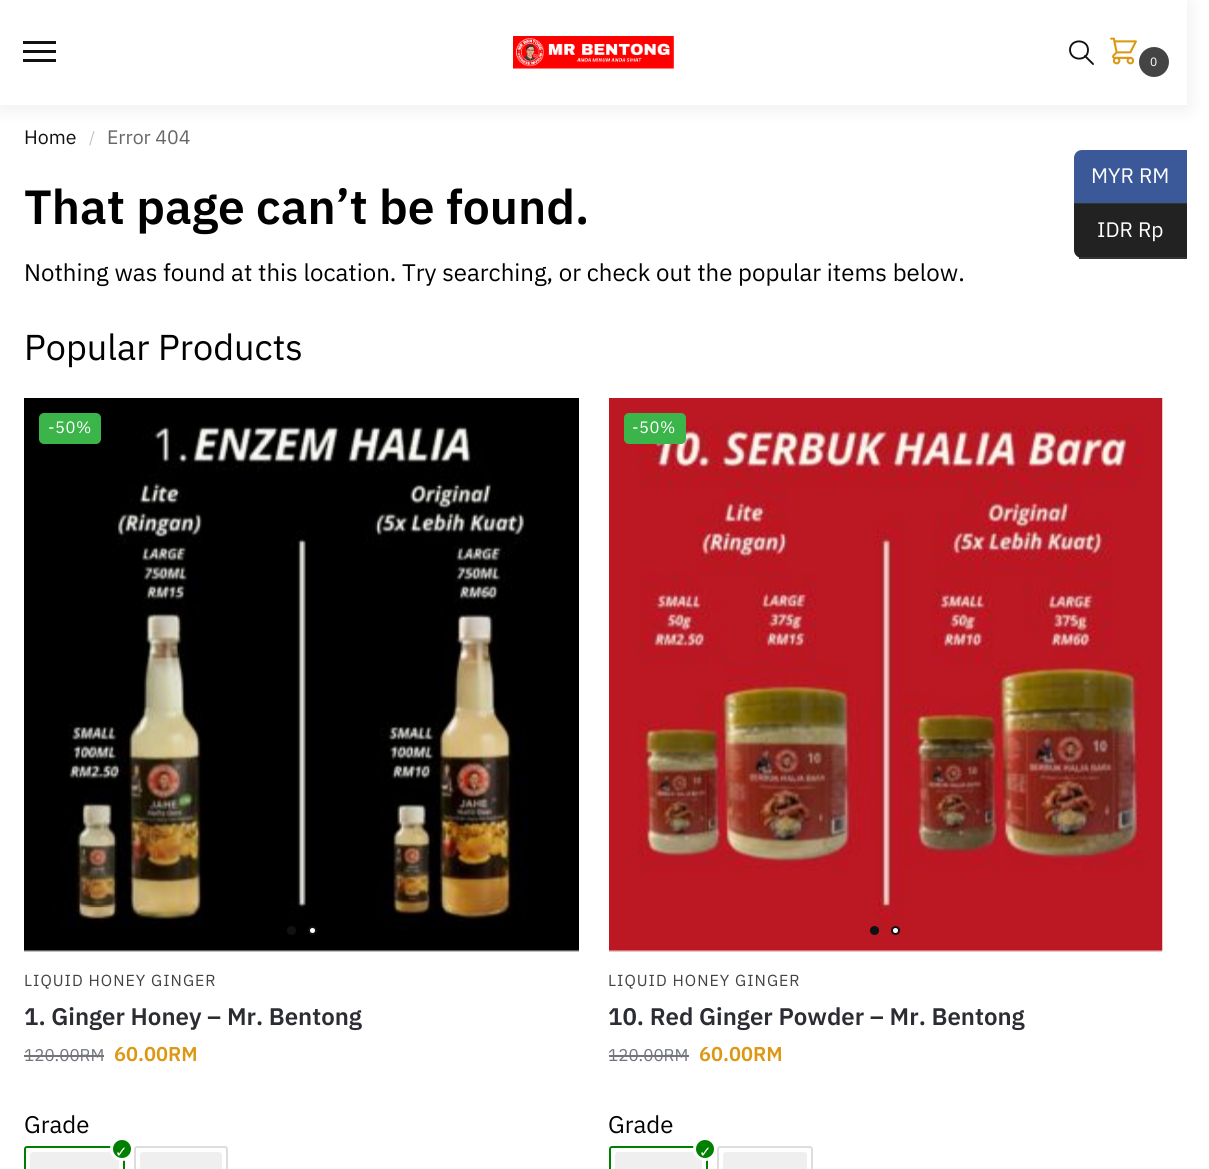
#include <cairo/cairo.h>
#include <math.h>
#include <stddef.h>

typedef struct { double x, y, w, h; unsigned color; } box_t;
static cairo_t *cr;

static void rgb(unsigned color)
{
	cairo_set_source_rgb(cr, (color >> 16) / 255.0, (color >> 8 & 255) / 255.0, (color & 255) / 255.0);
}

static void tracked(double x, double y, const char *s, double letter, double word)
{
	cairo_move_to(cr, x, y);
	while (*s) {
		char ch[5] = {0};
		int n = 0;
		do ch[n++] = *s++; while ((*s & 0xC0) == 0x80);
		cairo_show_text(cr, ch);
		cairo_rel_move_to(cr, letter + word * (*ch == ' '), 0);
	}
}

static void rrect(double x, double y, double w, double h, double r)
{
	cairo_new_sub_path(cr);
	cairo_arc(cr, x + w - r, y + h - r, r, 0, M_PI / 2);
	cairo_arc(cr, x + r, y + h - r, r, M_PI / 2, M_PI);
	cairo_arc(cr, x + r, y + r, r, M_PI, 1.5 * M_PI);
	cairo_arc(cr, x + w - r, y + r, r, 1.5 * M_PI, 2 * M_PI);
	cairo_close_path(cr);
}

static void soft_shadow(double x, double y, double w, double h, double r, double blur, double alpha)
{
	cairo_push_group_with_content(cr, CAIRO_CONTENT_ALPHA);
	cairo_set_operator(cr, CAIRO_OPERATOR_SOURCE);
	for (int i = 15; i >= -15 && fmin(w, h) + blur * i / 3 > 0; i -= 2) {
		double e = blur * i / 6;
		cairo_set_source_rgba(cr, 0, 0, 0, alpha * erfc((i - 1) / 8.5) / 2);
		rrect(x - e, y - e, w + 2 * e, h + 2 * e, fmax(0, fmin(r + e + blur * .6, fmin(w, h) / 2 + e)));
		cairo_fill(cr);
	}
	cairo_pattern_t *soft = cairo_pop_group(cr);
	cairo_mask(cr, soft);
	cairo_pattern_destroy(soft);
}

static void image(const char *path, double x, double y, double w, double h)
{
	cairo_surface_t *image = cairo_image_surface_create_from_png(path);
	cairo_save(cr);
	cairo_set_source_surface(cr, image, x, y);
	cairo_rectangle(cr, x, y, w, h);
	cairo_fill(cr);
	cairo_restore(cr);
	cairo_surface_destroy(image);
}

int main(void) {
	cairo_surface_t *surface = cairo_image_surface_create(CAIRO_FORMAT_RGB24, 1209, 1169);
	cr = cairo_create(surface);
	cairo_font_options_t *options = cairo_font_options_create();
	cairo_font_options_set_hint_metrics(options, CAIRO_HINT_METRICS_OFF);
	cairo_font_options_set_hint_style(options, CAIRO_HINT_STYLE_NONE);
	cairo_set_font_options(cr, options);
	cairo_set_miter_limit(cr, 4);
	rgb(0xffffff);
	cairo_paint(cr);
	rgb(0x000000);
	soft_shadow(0, 2, 1187, 105, 0, 11, 0.08);
	{
		static const box_t items[] = {
			{0, 0, 1187, 105, 0xffffff},
			{23, 41, 33, 3, 0x111111},
			{23, 50, 33, 3, 0x111111},
			{23, 59, 33, 3, 0x111111},
		};
		for (size_t i = 0; i < sizeof items / sizeof *items; i++) {
			rgb(items[i].color);
			cairo_rectangle(cr, items[i].x, items[i].y, items[i].w, items[i].h);
			cairo_fill(cr);
		}
	}
	image("img/1.png", 513, 36, 161, 33);
	cairo_new_path(cr);
	cairo_move_to(cr, 1093, 64);
	cairo_line_to(cr, 1085, 56);
	cairo_move_to(cr, 1088, 50);
	cairo_curve_to(cr, 1088, 61.5, 1070.5, 61.5, 1070, 50);
	cairo_curve_to(cr, 1070, 38.5, 1088, 38.5, 1088, 50);
	cairo_close_path(cr);
	cairo_set_line_width(cr, 1.9);
	cairo_set_line_cap(cr, CAIRO_LINE_CAP_ROUND);
	cairo_set_line_join(cr, CAIRO_LINE_JOIN_ROUND);
	cairo_stroke(cr);
	image("img/2.png", 1110, 37, 27, 28);
	rgb(0x444444);
	cairo_arc(cr, 1154, 62, 14, 0, 2 * M_PI);
	cairo_fill_preserve(cr);
	cairo_set_line_width(cr, 2);
	cairo_set_line_cap(cr, CAIRO_LINE_CAP_BUTT);
	cairo_set_line_join(cr, CAIRO_LINE_JOIN_MITER);
	cairo_stroke(cr);
	image("img/3.png", 24, 398, 555, 554);
	rgb(0x3bb54a);
	rrect(39, 413, 62, 31, 5);
	cairo_fill(cr);
	rgb(0x111111);
	cairo_arc(cr, 291.5, 930.5, 3.5, 0, 2 * M_PI);
	cairo_fill_preserve(cr);
	cairo_stroke(cr);
	rgb(0xffffff);
	cairo_arc(cr, 312.5, 930.5, 3.5, 0, 2 * M_PI);
	cairo_fill_preserve(cr);
	rgb(0x111111);
	cairo_stroke(cr);
	rgb(0x72767c);
	cairo_rectangle(cr, 24, 1055, 80, 2);
	cairo_fill(cr);
	rrect(25, 1147, 99, 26, 2);
	rgb(0x008000);
	cairo_stroke(cr);
	rgb(0xefefef);
	rrect(30, 1152, 89, 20, 3);
	cairo_fill(cr);
	rgb(0x008000);
	cairo_arc(cr, 122, 1149, 10.5, 0, 2 * M_PI);
	cairo_fill_preserve(cr);
	rgb(0xffffff);
	cairo_set_line_width(cr, 3);
	cairo_stroke(cr);
	rrect(135, 1147, 92, 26, 2);
	rgb(0xdddddd);
	cairo_set_line_width(cr, 2);
	cairo_stroke(cr);
	rgb(0xefefef);
	rrect(140, 1152, 82, 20, 3);
	cairo_fill(cr);
	image("img/4.png", 609, 398, 554, 554);
	rgb(0x3bb54a);
	rrect(624, 413, 62, 31, 5);
	cairo_fill(cr);
	rgb(0x111111);
	cairo_arc(cr, 874.5, 930.5, 3.5, 0, 2 * M_PI);
	cairo_fill_preserve(cr);
	cairo_stroke(cr);
	rgb(0xffffff);
	cairo_arc(cr, 895.5, 930.5, 3.5, 0, 2 * M_PI);
	cairo_fill_preserve(cr);
	rgb(0x111111);
	cairo_stroke(cr);
	rgb(0x72767c);
	cairo_rectangle(cr, 609, 1055, 80, 2);
	cairo_fill(cr);
	rrect(610, 1147, 97, 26, 2);
	rgb(0x008000);
	cairo_stroke(cr);
	rgb(0xefefef);
	rrect(615, 1152, 87, 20, 3);
	cairo_fill(cr);
	rgb(0x008000);
	cairo_arc(cr, 705, 1149, 10.5, 0, 2 * M_PI);
	cairo_fill_preserve(cr);
	rgb(0xffffff);
	cairo_set_line_width(cr, 3);
	cairo_stroke(cr);
	rrect(718, 1147, 94, 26, 2);
	rgb(0xdddddd);
	cairo_set_line_width(cr, 2);
	cairo_stroke(cr);
	rgb(0xefefef);
	rrect(723, 1152, 84, 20, 3);
	cairo_fill(cr);
	rgb(0x3b5998);
	cairo_new_path(cr);
	cairo_move_to(cr, 1082, 150);
	cairo_line_to(cr, 1187, 150);
	cairo_line_to(cr, 1187, 204);
	cairo_line_to(cr, 1074, 204);
	cairo_line_to(cr, 1074, 158);
	cairo_curve_to(cr, 1074, 153.5, 1077.5, 150, 1082, 150);
	cairo_close_path(cr);
	cairo_fill(cr);
	rgb(0x333333);
	cairo_rectangle(cr, 1074, 203, 113, 1);
	cairo_fill(cr);
	rgb(0x222222);
	cairo_new_path(cr);
	cairo_move_to(cr, 1074, 204);
	cairo_line_to(cr, 1187, 204);
	cairo_line_to(cr, 1187, 258);
	cairo_line_to(cr, 1082, 258);
	cairo_curve_to(cr, 1077.5, 258, 1074, 254.5, 1074, 250);
	cairo_close_path(cr);
	cairo_fill(cr);
	rgb(0x333333);
	cairo_rectangle(cr, 1079, 257, 108, 2);
	cairo_fill(cr);
	cairo_select_font_face(cr, "IBM Plex Sans", CAIRO_FONT_SLANT_NORMAL, CAIRO_FONT_WEIGHT_NORMAL);
	cairo_set_font_size(cr, 12);
	rgb(0xffffff);
	cairo_move_to(cr, 1150, 66);
	cairo_show_text(cr, "0");
	cairo_set_font_size(cr, 19.5);
	rgb(0x111111);
	cairo_move_to(cr, 24, 144);
	cairo_show_text(cr, "Home");
	cairo_set_font_size(cr, 16);
	rgb(0xc2c2c2);
	cairo_move_to(cr, 89, 143);
	cairo_show_text(cr, "/");
	cairo_set_font_size(cr, 19.5);
	rgb(0x666666);
	cairo_move_to(cr, 107, 144);
	cairo_show_text(cr, "Error 404");
	cairo_select_font_face(cr, "IBM Plex Sans SemiBold", CAIRO_FONT_SLANT_NORMAL, CAIRO_FONT_WEIGHT_NORMAL);
	cairo_set_font_size(cr, 48);
	rgb(0x000000);
	cairo_move_to(cr, 24, 224);
	cairo_show_text(cr, "That page can’t be found.");
	cairo_select_font_face(cr, "IBM Plex Sans", CAIRO_FONT_SLANT_NORMAL, CAIRO_FONT_WEIGHT_NORMAL);
	cairo_set_font_size(cr, 24);
	cairo_move_to(cr, 24, 281);
	cairo_show_text(cr, "Nothing was found at this location. Try searching, or check out the popular items below.");
	cairo_set_font_size(cr, 36);
	cairo_move_to(cr, 24, 360);
	cairo_show_text(cr, "Popular Products");
	cairo_set_font_size(cr, 16.5);
	rgb(0xffffff);
	tracked(48, 433, "-50%", 0.5, 0);
	cairo_set_font_size(cr, 16);
	rgb(0x444444);
	tracked(24, 986, "LIQUID HONEY GINGER", 1, 0);
	cairo_select_font_face(cr, "IBM Plex Sans SemiBold", CAIRO_FONT_SLANT_NORMAL, CAIRO_FONT_WEIGHT_NORMAL);
	cairo_set_font_size(cr, 24);
	rgb(0x2c2d33);
	cairo_move_to(cr, 24, 1025);
	cairo_show_text(cr, "1. Ginger Honey – Mr. Bentong");
	cairo_select_font_face(cr, "IBM Plex Sans", CAIRO_FONT_SLANT_NORMAL, CAIRO_FONT_WEIGHT_NORMAL);
	cairo_set_font_size(cr, 17);
	rgb(0x72767c);
	cairo_move_to(cr, 24, 1061);
	cairo_show_text(cr, "120.00RM");
	cairo_select_font_face(cr, "IBM Plex Sans SemiBold", CAIRO_FONT_SLANT_NORMAL, CAIRO_FONT_WEIGHT_NORMAL);
	cairo_set_font_size(cr, 20);
	rgb(0xdc9814);
	cairo_move_to(cr, 114, 1061);
	cairo_show_text(cr, "60.00RM");
	cairo_select_font_face(cr, "IBM Plex Sans", CAIRO_FONT_SLANT_NORMAL, CAIRO_FONT_WEIGHT_NORMAL);
	cairo_set_font_size(cr, 24);
	rgb(0x000000);
	cairo_move_to(cr, 24, 1133);
	cairo_show_text(cr, "Grade");
	cairo_select_font_face(cr, "DejaVu Sans", CAIRO_FONT_SLANT_NORMAL, CAIRO_FONT_WEIGHT_NORMAL);
	cairo_set_font_size(cr, 15);
	rgb(0xffffff);
	cairo_move_to(cr, 115, 1157);
	cairo_show_text(cr, "✓");
	cairo_select_font_face(cr, "IBM Plex Sans", CAIRO_FONT_SLANT_NORMAL, CAIRO_FONT_WEIGHT_NORMAL);
	cairo_set_font_size(cr, 16.5);
	tracked(632, 433, "-50%", 0.5, 0);
	cairo_set_font_size(cr, 16);
	rgb(0x444444);
	tracked(608, 986, "LIQUID HONEY GINGER", 1, 0);
	cairo_select_font_face(cr, "IBM Plex Sans SemiBold", CAIRO_FONT_SLANT_NORMAL, CAIRO_FONT_WEIGHT_NORMAL);
	cairo_set_font_size(cr, 24);
	rgb(0x2c2d33);
	cairo_move_to(cr, 608, 1025);
	cairo_show_text(cr, "10. Red Ginger Powder – Mr. Bentong");
	cairo_select_font_face(cr, "IBM Plex Sans", CAIRO_FONT_SLANT_NORMAL, CAIRO_FONT_WEIGHT_NORMAL);
	cairo_set_font_size(cr, 17);
	rgb(0x72767c);
	cairo_move_to(cr, 608, 1061);
	cairo_show_text(cr, "120.00RM");
	cairo_select_font_face(cr, "IBM Plex Sans SemiBold", CAIRO_FONT_SLANT_NORMAL, CAIRO_FONT_WEIGHT_NORMAL);
	cairo_set_font_size(cr, 20);
	rgb(0xdc9814);
	cairo_move_to(cr, 699, 1061);
	cairo_show_text(cr, "60.00RM");
	cairo_select_font_face(cr, "IBM Plex Sans", CAIRO_FONT_SLANT_NORMAL, CAIRO_FONT_WEIGHT_NORMAL);
	cairo_set_font_size(cr, 24);
	rgb(0x000000);
	cairo_move_to(cr, 608, 1133);
	cairo_show_text(cr, "Grade");
	cairo_select_font_face(cr, "DejaVu Sans", CAIRO_FONT_SLANT_NORMAL, CAIRO_FONT_WEIGHT_NORMAL);
	cairo_set_font_size(cr, 15);
	rgb(0xffffff);
	cairo_move_to(cr, 699, 1157);
	cairo_show_text(cr, "✓");
	cairo_select_font_face(cr, "IBM Plex Sans", CAIRO_FONT_SLANT_NORMAL, CAIRO_FONT_WEIGHT_NORMAL);
	cairo_set_font_size(cr, 21);
	cairo_move_to(cr, 1091, 183);
	cairo_show_text(cr, "MYR RM");
	cairo_move_to(cr, 1097, 237);
	cairo_show_text(cr, "IDR Rp");
	cairo_surface_write_to_png(surface, "page.png");
	cairo_font_options_destroy(options);
	cairo_destroy(cr);
	cairo_surface_destroy(surface);
	return 0;
}
